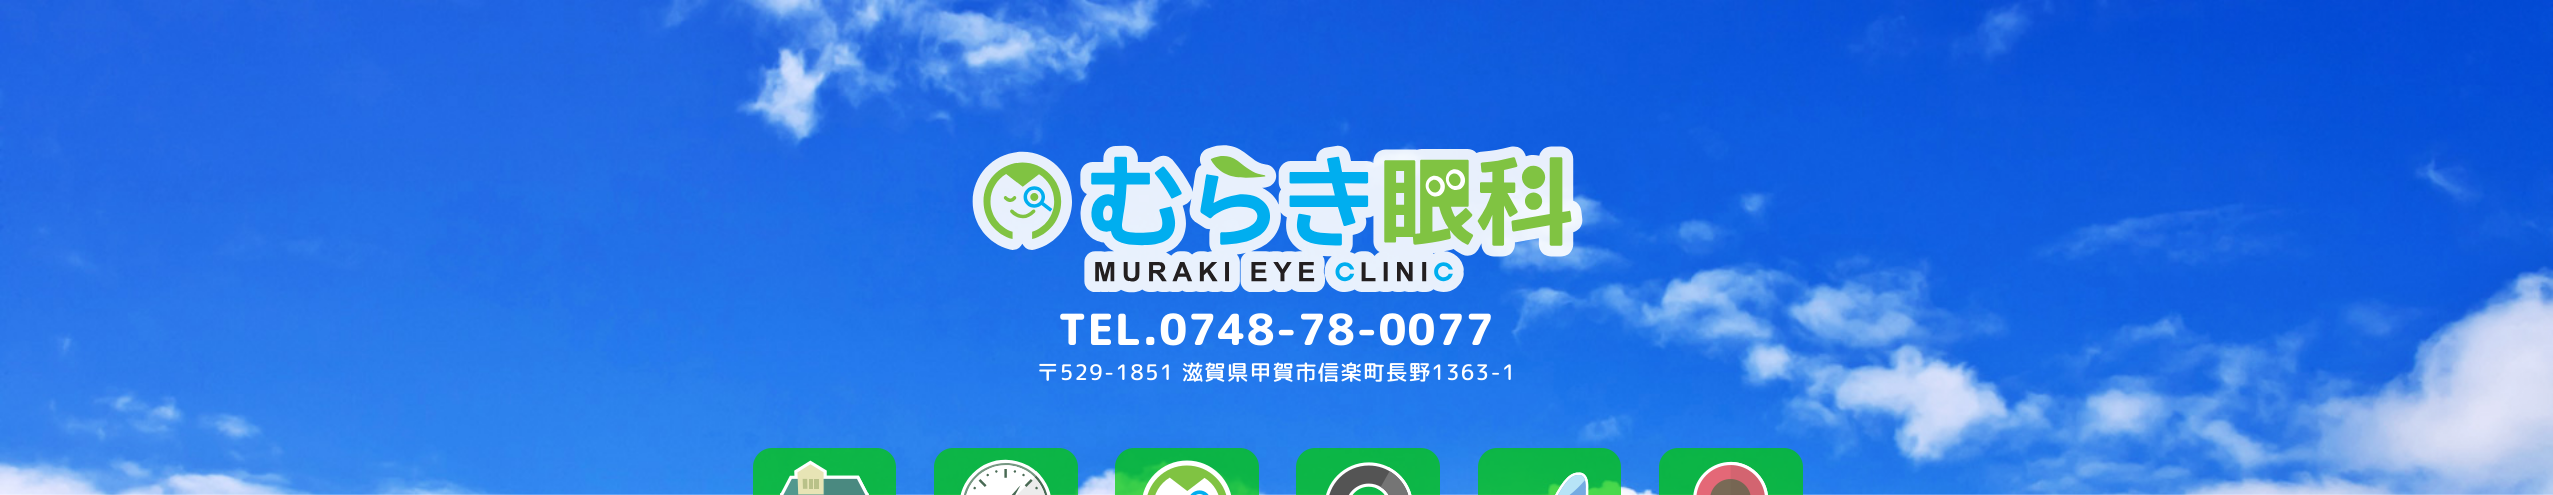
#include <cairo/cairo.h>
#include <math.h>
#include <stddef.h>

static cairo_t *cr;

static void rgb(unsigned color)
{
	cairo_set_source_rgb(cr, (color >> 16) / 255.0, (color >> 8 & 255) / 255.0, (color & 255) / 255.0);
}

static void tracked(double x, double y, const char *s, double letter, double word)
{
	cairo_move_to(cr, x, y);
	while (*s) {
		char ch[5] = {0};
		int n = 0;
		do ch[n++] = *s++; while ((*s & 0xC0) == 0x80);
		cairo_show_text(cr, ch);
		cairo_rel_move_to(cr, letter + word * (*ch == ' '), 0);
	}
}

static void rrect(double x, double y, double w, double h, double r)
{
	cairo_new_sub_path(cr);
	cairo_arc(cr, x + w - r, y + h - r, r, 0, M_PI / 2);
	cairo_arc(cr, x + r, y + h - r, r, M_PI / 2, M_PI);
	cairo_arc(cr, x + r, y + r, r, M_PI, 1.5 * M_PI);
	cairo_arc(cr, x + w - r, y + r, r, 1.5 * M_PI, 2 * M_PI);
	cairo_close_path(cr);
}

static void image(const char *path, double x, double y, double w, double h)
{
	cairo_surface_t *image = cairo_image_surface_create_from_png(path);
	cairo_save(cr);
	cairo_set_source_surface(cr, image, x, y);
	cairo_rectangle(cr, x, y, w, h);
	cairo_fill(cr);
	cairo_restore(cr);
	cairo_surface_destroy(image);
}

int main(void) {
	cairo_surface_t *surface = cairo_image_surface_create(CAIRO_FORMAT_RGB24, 2553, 495);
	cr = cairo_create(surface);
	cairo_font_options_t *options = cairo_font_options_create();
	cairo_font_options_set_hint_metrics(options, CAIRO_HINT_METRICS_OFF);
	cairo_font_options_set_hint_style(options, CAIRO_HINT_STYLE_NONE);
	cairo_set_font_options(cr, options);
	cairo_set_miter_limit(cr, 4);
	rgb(0xffffff);
	cairo_paint(cr);
	image("img/1.png", 0, 0, 2553, 495);
	image("img/2.png", 972, 145, 611, 148);
	cairo_set_source_rgba(cr, 0, 0.8, 0, 0.7);
	rrect(753, 448, 143, 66, 19);
	cairo_fill(cr);
	image("img/3.png", 779, 460, 90, 35);
	rrect(934, 448, 144, 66, 19);
	cairo_fill(cr);
	image("img/4.png", 960, 459, 91, 36);
	rrect(1115, 448, 144, 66, 19);
	cairo_fill(cr);
	image("img/5.png", 1142, 460, 90, 35);
	rrect(1296, 448, 144, 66, 19);
	cairo_fill(cr);
	image("img/6.png", 1326, 462, 86, 33);
	rrect(1478, 448, 143, 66, 19);
	cairo_fill(cr);
	image("img/7.png", 1555, 472, 34, 23);
	rrect(1659, 448, 144, 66, 19);
	cairo_fill(cr);
	image("img/8.png", 1693, 461, 75, 34);
	cairo_select_font_face(cr, "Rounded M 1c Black", CAIRO_FONT_SLANT_NORMAL, CAIRO_FONT_WEIGHT_NORMAL);
	cairo_set_font_size(cr, 42.9);
	rgb(0xffffff);
	tracked(1058, 345, "TEL.0748-78-0077", 1.25, 0);
	cairo_select_font_face(cr, "Rounded M 1c Medium", CAIRO_FONT_SLANT_NORMAL, CAIRO_FONT_WEIGHT_NORMAL);
	cairo_set_font_size(cr, 21.45);
	tracked(1037, 380, "〒529-1851 滋賀県甲賀市信楽町長野1363-1", 1.25, 0);
	cairo_surface_write_to_png(surface, "page.png");
	cairo_font_options_destroy(options);
	cairo_destroy(cr);
	cairo_surface_destroy(surface);
	return 0;
}
